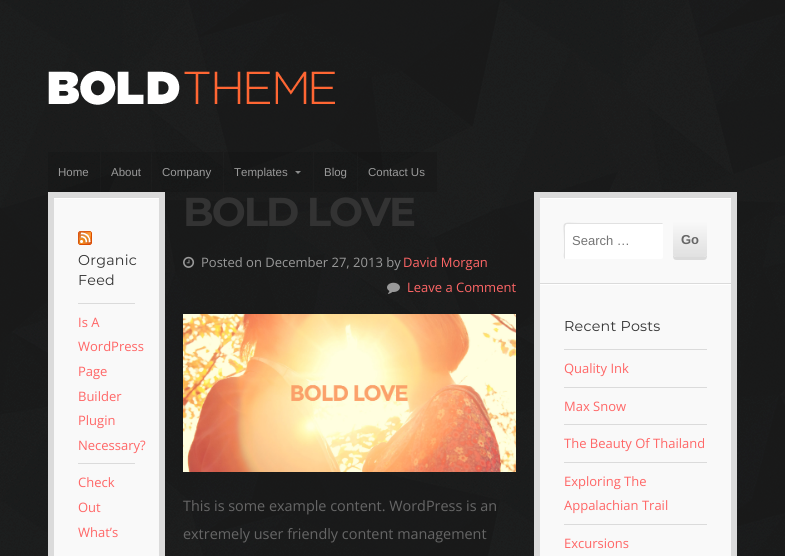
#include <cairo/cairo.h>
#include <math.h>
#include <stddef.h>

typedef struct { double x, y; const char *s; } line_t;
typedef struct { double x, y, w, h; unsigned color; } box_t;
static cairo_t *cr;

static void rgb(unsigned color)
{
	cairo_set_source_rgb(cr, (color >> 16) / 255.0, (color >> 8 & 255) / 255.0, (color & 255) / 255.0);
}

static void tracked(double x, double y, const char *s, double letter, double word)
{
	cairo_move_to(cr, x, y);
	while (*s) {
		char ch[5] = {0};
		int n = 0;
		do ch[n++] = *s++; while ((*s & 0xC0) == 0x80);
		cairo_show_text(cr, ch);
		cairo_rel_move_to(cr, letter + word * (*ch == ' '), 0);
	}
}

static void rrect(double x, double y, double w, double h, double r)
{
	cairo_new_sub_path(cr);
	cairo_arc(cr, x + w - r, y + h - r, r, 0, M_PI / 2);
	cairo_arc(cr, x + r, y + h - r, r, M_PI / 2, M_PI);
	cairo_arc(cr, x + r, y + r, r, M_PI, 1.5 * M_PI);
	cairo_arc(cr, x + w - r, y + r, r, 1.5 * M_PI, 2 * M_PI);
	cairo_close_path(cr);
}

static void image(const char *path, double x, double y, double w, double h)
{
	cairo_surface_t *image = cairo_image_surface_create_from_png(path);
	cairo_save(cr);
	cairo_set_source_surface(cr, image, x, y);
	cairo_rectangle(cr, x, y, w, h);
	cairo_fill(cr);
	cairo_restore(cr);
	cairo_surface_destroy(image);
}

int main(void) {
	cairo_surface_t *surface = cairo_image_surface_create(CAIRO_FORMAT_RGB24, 785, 556);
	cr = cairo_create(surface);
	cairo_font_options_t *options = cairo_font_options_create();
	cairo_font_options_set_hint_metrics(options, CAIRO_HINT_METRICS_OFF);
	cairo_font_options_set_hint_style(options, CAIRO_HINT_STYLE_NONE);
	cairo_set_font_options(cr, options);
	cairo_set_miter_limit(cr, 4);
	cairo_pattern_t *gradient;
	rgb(0xffffff);
	cairo_paint(cr);
	image("img/1.png", 0, 0, 785, 556);
	image("img/2.png", 48, 71, 287, 34);
	cairo_set_source_rgba(cr, 0, 0, 0, 0.12);
	cairo_rectangle(cr, 48, 152, 52, 40);
	cairo_fill(cr);
	cairo_rectangle(cr, 101, 152, 50, 40);
	cairo_fill(cr);
	cairo_rectangle(cr, 152, 152, 71, 40);
	cairo_fill(cr);
	cairo_rectangle(cr, 224, 152, 89, 40);
	cairo_fill(cr);
	rgb(0x8b8c8c);
	cairo_new_path(cr);
	cairo_move_to(cr, 295, 171);
	cairo_line_to(cr, 301, 171);
	cairo_line_to(cr, 298, 174);
	cairo_close_path(cr);
	cairo_fill(cr);
	cairo_set_source_rgba(cr, 0, 0, 0, 0.12);
	cairo_rectangle(cr, 314, 152, 43, 40);
	cairo_fill(cr);
	cairo_rectangle(cr, 358, 152, 79, 40);
	cairo_fill(cr);
	rgb(0xf9f9f9);
	cairo_rectangle(cr, 54, 199, 105, 357);
	cairo_fill(cr);
	cairo_rectangle(cr, 51, 195, 111, 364);
	rgb(0xdbdbdb);
	cairo_set_line_width(cr, 6);
	cairo_stroke(cr);
	rgb(0xffffff);
	cairo_rectangle(cr, 54, 198, 105, 1);
	cairo_fill(cr);
	image("img/3.png", 78, 231, 14, 14);
	rgb(0xdbdbdb);
	cairo_rectangle(cr, 78, 303, 57, 1);
	cairo_fill(cr);
	cairo_rectangle(cr, 78, 463, 57, 1);
	cairo_fill(cr);
	image("img/4.png", 183, 256, 12, 12);
	image("img/5.png", 387, 282, 13, 12);
	image("img/6.png", 183, 314, 333, 158);
	rgb(0xf9f9f9);
	cairo_rectangle(cr, 540, 199, 191, 357);
	cairo_fill(cr);
	cairo_rectangle(cr, 537, 195, 197, 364);
	rgb(0xdbdbdb);
	cairo_stroke(cr);
	rgb(0xffffff);
	cairo_rectangle(cr, 540, 198, 191, 1);
	cairo_fill(cr);
	rgb(0xdbdbdb);
	cairo_rectangle(cr, 540, 283, 191, 1);
	cairo_fill(cr);
	rgb(0xffffff);
	rrect(564, 223, 99, 36, 2);
	cairo_fill(cr);
	cairo_set_source_rgba(cr, 0, 0, 0, 0.12);
	cairo_new_path(cr);
	cairo_move_to(cr, 567, 224);
	cairo_line_to(cr, 663, 224);
	cairo_line_to(cr, 662, 223);
	cairo_line_to(cr, 582, 223);
	cairo_curve_to(cr, 559, 223, 564, 219, 564, 241);
	cairo_line_to(cr, 564, 252);
	cairo_curve_to(cr, 564, 253, 563, 258, 565, 259);
	cairo_line_to(cr, 565, 231);
	cairo_curve_to(cr, 565, 231, 564, 224, 567, 224);
	cairo_close_path(cr);
	cairo_fill(cr);
	rgb(0xdbdbdb);
	cairo_new_path(cr);
	cairo_move_to(cr, 673, 254);
	cairo_curve_to(cr, 673, 260.5, 674, 260, 680.5, 260);
	cairo_line_to(cr, 699.5, 260);
	cairo_curve_to(cr, 706, 260, 707, 260.5, 707, 254);
	cairo_curve_to(cr, 707, 255.5, 705.5, 257, 704, 257);
	cairo_line_to(cr, 676, 257);
	cairo_curve_to(cr, 674.5, 257, 673, 255.5, 673, 254);
	cairo_close_path(cr);
	cairo_fill(cr);
	rgb(0xf9f9f9);
	rrect(673, 221, 34, 36, 3);
	cairo_fill(cr);
	gradient = cairo_pattern_create_linear(690, 221, 690, 257);
	cairo_pattern_add_color_stop_rgba(gradient, 0, 0, 0, 0, 0);
	cairo_pattern_add_color_stop_rgba(gradient, 1, 0, 0, 0, 0.1);
	cairo_set_source(cr, gradient);
	cairo_pattern_destroy(gradient);
	rrect(673, 221, 34, 36, 3);
	cairo_fill(cr);
	{
		static const box_t items[] = {
			{540, 284, 191, 1, 0xffffff},
			{564, 349, 143, 1, 0xdbdbdb},
			{564, 387, 143, 1, 0xdbdbdb},
			{564, 424, 143, 1, 0xdbdbdb},
			{564, 462, 143, 1, 0xdbdbdb},
			{564, 524, 143, 1, 0xdbdbdb},
		};
		for (size_t i = 0; i < sizeof items / sizeof *items; i++) {
			rgb(items[i].color);
			cairo_rectangle(cr, items[i].x, items[i].y, items[i].w, items[i].h);
			cairo_fill(cr);
		}
	}
	cairo_select_font_face(cr, "Liberation Sans", CAIRO_FONT_SLANT_NORMAL, CAIRO_FONT_WEIGHT_NORMAL);
	cairo_set_font_size(cr, 11.5);
	rgb(0x999999);
	{
		static const line_t items[] = {
			{58, 176, "Home"},
			{111, 176, "About"},
			{162, 176, "Company"},
			{234, 176, "Templates"},
			{324, 176, "Blog"},
			{368, 176, "Contact Us"},
		};
		for (size_t i = 0; i < sizeof items / sizeof *items; i++) {
			cairo_move_to(cr, items[i].x, items[i].y);
			cairo_show_text(cr, items[i].s);
		}
	}
	cairo_select_font_face(cr, "Montserrat", CAIRO_FONT_SLANT_NORMAL, CAIRO_FONT_WEIGHT_NORMAL);
	cairo_set_font_size(cr, 14.25);
	rgb(0x333333);
	tracked(78, 265, "Organic", 0.25, 0);
	tracked(78, 285, "Feed", 0.25, 0);
	cairo_select_font_face(cr, "Open Sans", CAIRO_FONT_SLANT_NORMAL, CAIRO_FONT_WEIGHT_NORMAL);
	cairo_set_font_size(cr, 13);
	rgb(0xff6666);
	{
		static const line_t items[] = {
			{78, 327, "Is A"},
			{78, 351, "WordPress"},
			{78, 376, "Page"},
			{78, 401, "Builder"},
			{78, 425, "Plugin"},
			{78, 450, "Necessary?"},
			{78, 487, "Check"},
			{78, 512, "Out"},
			{78, 537, "What’s"},
		};
		for (size_t i = 0; i < sizeof items / sizeof *items; i++) {
			cairo_move_to(cr, items[i].x, items[i].y);
			cairo_show_text(cr, items[i].s);
		}
	}
	cairo_select_font_face(cr, "Montserrat", CAIRO_FONT_SLANT_NORMAL, CAIRO_FONT_WEIGHT_BOLD);
	cairo_set_font_size(cr, 40.25);
	rgb(0x333333);
	tracked(183, 226, "BOLD LOVE", -2, 0);
	cairo_select_font_face(cr, "Open Sans", CAIRO_FONT_SLANT_NORMAL, CAIRO_FONT_WEIGHT_NORMAL);
	cairo_set_font_size(cr, 13);
	rgb(0x999999);
	cairo_move_to(cr, 201, 267);
	cairo_show_text(cr, "Posted on December 27, 2013 by");
	rgb(0xff6666);
	cairo_move_to(cr, 403, 267);
	cairo_show_text(cr, "David Morgan");
	cairo_move_to(cr, 407, 292);
	cairo_show_text(cr, "Leave a Comment");
	cairo_set_font_size(cr, 14.4);
	rgb(0x666666);
	cairo_move_to(cr, 183, 511);
	cairo_show_text(cr, "This is some example content. WordPress is an");
	cairo_move_to(cr, 183, 539);
	cairo_show_text(cr, "extremely user friendly content management");
	cairo_select_font_face(cr, "Liberation Sans", CAIRO_FONT_SLANT_NORMAL, CAIRO_FONT_WEIGHT_NORMAL);
	cairo_set_font_size(cr, 13);
	rgb(0x757575);
	cairo_move_to(cr, 572, 245);
	cairo_show_text(cr, "Search …");
	cairo_select_font_face(cr, "Liberation Sans", CAIRO_FONT_SLANT_NORMAL, CAIRO_FONT_WEIGHT_BOLD);
	rgb(0x666666);
	cairo_move_to(cr, 681, 244);
	cairo_show_text(cr, "Go");
	cairo_select_font_face(cr, "Montserrat", CAIRO_FONT_SLANT_NORMAL, CAIRO_FONT_WEIGHT_NORMAL);
	cairo_set_font_size(cr, 14.25);
	rgb(0x333333);
	tracked(564, 331, "Recent Posts", 0.25, 0);
	cairo_select_font_face(cr, "Open Sans", CAIRO_FONT_SLANT_NORMAL, CAIRO_FONT_WEIGHT_NORMAL);
	cairo_set_font_size(cr, 13);
	rgb(0xff6666);
	{
		static const line_t items[] = {
			{564, 373, "Quality Ink"},
			{564, 411, "Max Snow"},
			{564, 448, "The Beauty Of Thailand"},
			{564, 486, "Exploring The"},
			{564, 510, "Appalachian Trail"},
			{564, 548, "Excursions"},
		};
		for (size_t i = 0; i < sizeof items / sizeof *items; i++) {
			cairo_move_to(cr, items[i].x, items[i].y);
			cairo_show_text(cr, items[i].s);
		}
	}
	cairo_surface_write_to_png(surface, "page.png");
	cairo_font_options_destroy(options);
	cairo_destroy(cr);
	cairo_surface_destroy(surface);
	return 0;
}
